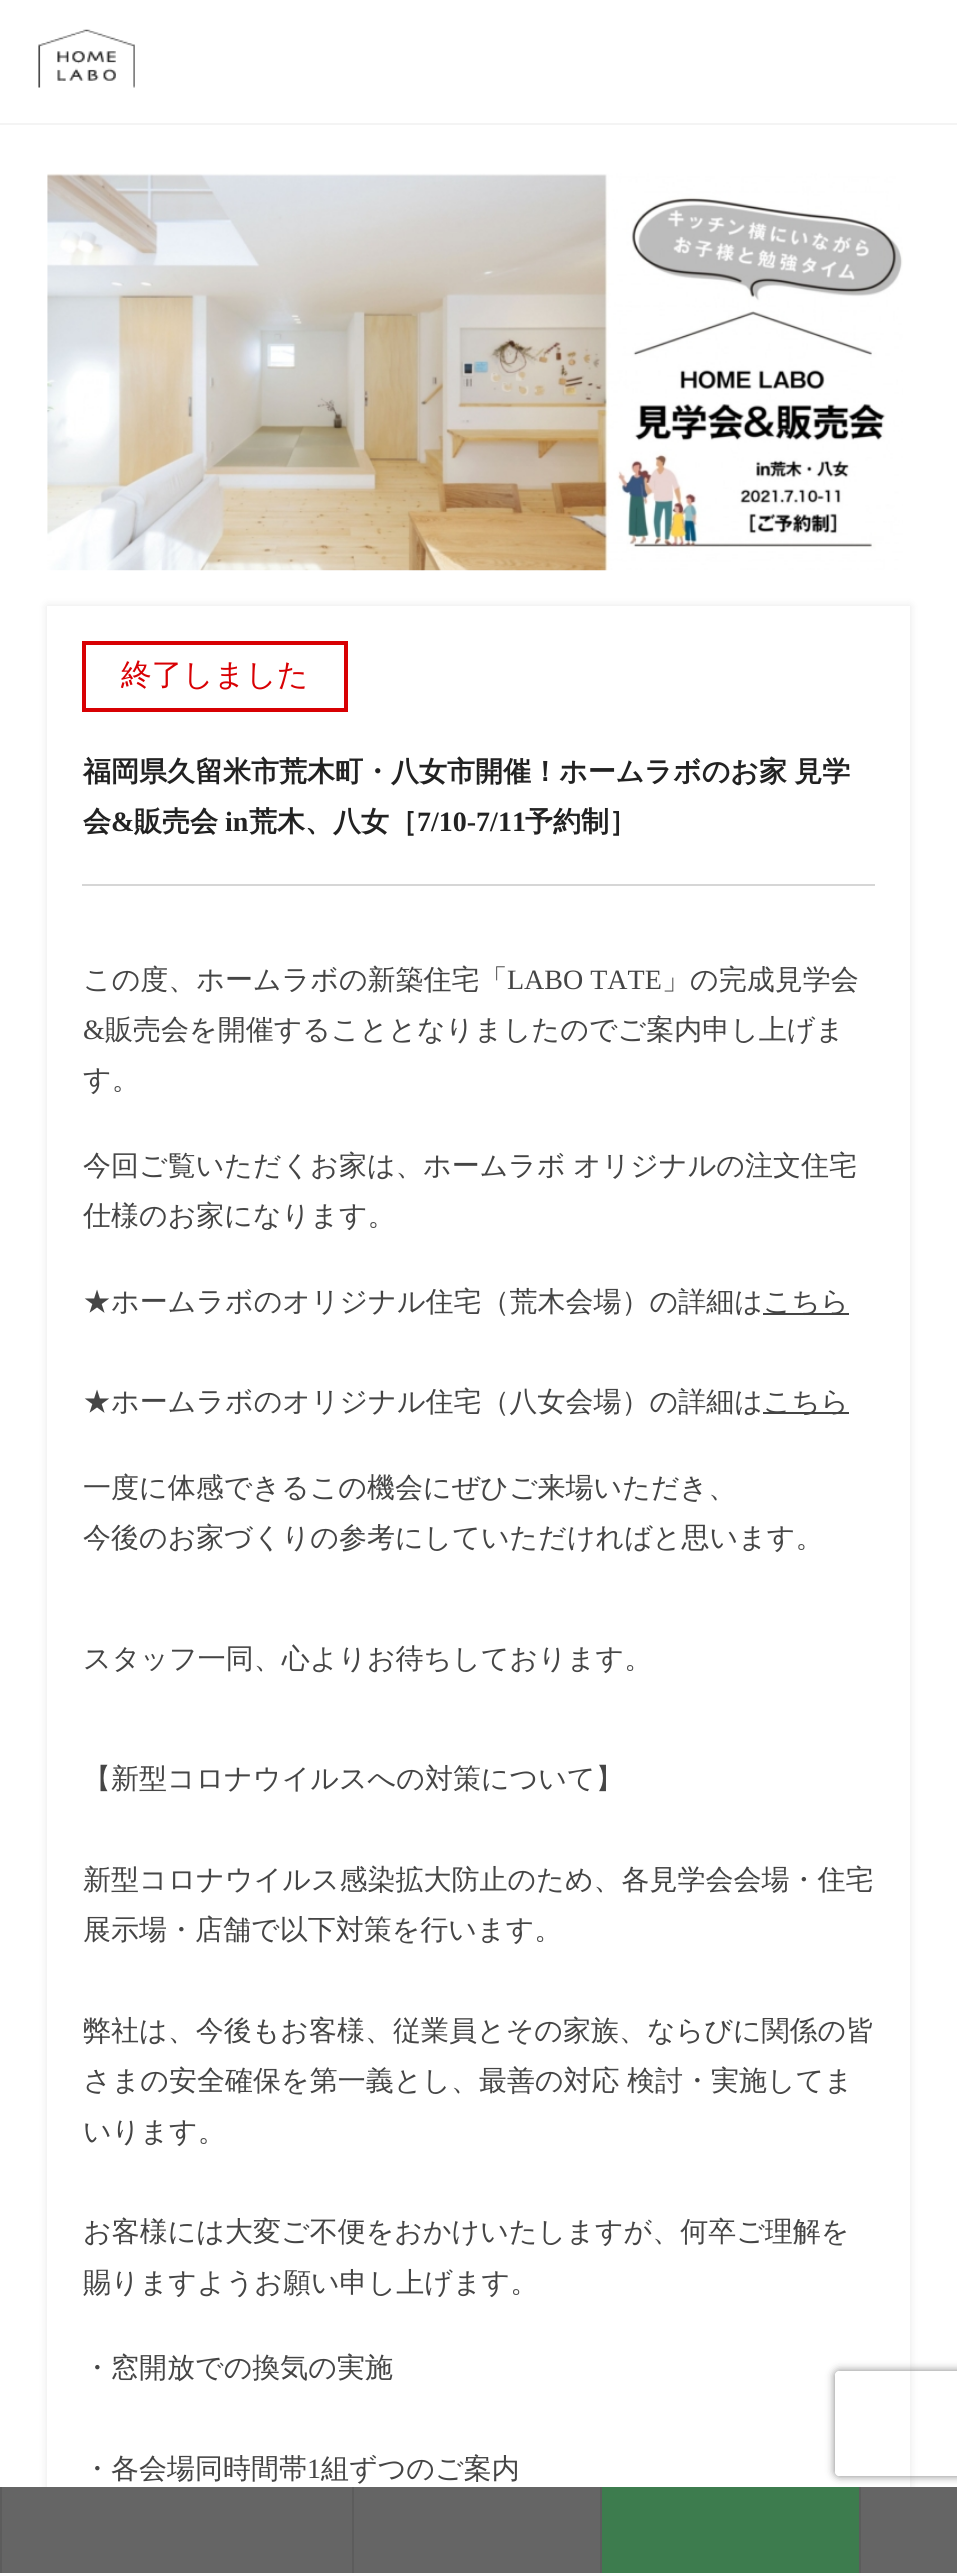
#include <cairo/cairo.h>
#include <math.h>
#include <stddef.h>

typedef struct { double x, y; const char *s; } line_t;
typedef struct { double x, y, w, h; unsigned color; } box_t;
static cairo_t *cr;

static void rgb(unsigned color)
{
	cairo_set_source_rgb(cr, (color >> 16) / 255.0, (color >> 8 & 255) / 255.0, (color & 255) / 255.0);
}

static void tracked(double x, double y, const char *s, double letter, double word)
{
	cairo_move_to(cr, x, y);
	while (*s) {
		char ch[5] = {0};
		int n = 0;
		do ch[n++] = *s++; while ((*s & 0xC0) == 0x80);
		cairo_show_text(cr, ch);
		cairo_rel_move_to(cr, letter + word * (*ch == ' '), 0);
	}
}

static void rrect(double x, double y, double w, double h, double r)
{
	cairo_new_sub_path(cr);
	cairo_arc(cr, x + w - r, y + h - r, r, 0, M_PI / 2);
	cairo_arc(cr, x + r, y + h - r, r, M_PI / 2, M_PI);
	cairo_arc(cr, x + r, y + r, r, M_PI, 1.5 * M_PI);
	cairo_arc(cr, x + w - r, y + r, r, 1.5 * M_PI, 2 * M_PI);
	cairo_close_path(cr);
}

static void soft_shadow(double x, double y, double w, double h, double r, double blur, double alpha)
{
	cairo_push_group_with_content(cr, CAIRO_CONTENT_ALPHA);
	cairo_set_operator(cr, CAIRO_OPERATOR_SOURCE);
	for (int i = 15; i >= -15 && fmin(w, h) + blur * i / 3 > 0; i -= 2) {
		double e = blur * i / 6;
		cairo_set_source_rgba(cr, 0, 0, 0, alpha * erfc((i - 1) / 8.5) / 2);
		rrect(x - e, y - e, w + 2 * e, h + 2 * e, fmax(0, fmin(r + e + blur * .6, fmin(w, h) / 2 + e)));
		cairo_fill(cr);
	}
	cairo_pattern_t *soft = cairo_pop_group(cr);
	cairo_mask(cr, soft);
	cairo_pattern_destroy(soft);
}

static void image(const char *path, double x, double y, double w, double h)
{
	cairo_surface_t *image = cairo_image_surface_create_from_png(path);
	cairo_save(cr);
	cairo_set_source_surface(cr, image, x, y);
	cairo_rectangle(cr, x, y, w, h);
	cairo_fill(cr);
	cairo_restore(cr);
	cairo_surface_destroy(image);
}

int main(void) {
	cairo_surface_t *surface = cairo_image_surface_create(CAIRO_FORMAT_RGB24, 957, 2573);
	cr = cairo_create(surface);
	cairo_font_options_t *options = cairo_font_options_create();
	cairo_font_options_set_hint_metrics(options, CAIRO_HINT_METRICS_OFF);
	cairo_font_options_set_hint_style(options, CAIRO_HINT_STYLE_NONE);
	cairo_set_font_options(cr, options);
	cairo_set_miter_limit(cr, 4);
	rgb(0xffffff);
	cairo_paint(cr);
	rgb(0xf4f4f4);
	cairo_rectangle(cr, 0, 123, 957, 2);
	cairo_fill(cr);
	image("img/1.png", 38, 29, 97, 59);
	cairo_save(cr);
	cairo_set_fill_rule(cr, CAIRO_FILL_RULE_EVEN_ODD);
	cairo_new_path(cr);
	cairo_move_to(cr, 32, 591);
	cairo_line_to(cr, 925, 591);
	cairo_line_to(cr, 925, 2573);
	cairo_line_to(cr, 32, 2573);
	cairo_close_path(cr);
	cairo_move_to(cr, 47, 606);
	cairo_line_to(cr, 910, 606);
	cairo_line_to(cr, 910, 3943);
	cairo_line_to(cr, 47, 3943);
	cairo_close_path(cr);
	cairo_clip(cr);
	rgb(0x000000);
	soft_shadow(47, 606, 863, 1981, 0, 4.5, 0.1);
	cairo_restore(cr);
	cairo_save(cr);
	cairo_set_fill_rule(cr, CAIRO_FILL_RULE_EVEN_ODD);
	cairo_new_path(cr);
	cairo_move_to(cr, 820, 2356);
	cairo_line_to(cr, 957, 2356);
	cairo_line_to(cr, 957, 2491);
	cairo_line_to(cr, 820, 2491);
	cairo_close_path(cr);
	cairo_move_to(cr, 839, 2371);
	cairo_line_to(cr, 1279, 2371);
	cairo_curve_to(cr, 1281, 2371, 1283, 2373, 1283, 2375);
	cairo_line_to(cr, 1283, 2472);
	cairo_curve_to(cr, 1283, 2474, 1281, 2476, 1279, 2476);
	cairo_line_to(cr, 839, 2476);
	cairo_curve_to(cr, 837, 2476, 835, 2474, 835, 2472);
	cairo_line_to(cr, 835, 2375);
	cairo_curve_to(cr, 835, 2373, 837, 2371, 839, 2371);
	cairo_close_path(cr);
	cairo_clip(cr);
	rgb(0x808080);
	soft_shadow(835, 2371, 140, 105, 4, 4.5, 1);
	cairo_restore(cr);
	{
		static const box_t items[] = {
			{2, 2487, 955, 86, 0x656565},
			{0, 2487, 2, 86, 0x5c5c5c},
			{352, 2487, 2, 86, 0x5c5c5c},
			{602, 2487, 257, 86, 0x3d7c4e},
			{600, 2487, 2, 86, 0x5c5c5c},
			{859, 2487, 2, 86, 0x5c5c5c},
		};
		for (size_t i = 0; i < sizeof items / sizeof *items; i++) {
			rgb(items[i].color);
			cairo_rectangle(cr, items[i].x, items[i].y, items[i].w, items[i].h);
			cairo_fill(cr);
		}
	}
	image("img/2.png", 47, 173, 856, 398);
	cairo_rectangle(cr, 84, 643, 262, 67);
	rgb(0xd80003);
	cairo_set_line_width(cr, 4);
	cairo_stroke(cr);
	{
		static const box_t items[] = {
			{82, 884, 793, 2, 0xd6d6d6},
			{763, 1313, 86, 2, 0x454545},
			{763, 1412, 86, 2, 0x454545},
		};
		for (size_t i = 0; i < sizeof items / sizeof *items; i++) {
			rgb(items[i].color);
			cairo_rectangle(cr, items[i].x, items[i].y, items[i].w, items[i].h);
			cairo_fill(cr);
		}
	}
	cairo_select_font_face(cr, "WenQuanYi Zen Hei Medium", CAIRO_FONT_SLANT_NORMAL, CAIRO_FONT_WEIGHT_NORMAL);
	cairo_set_font_size(cr, 30.75);
	rgb(0xd80003);
	cairo_move_to(cr, 121, 685);
	cairo_show_text(cr, "終了しました");
	cairo_select_font_face(cr, "WenQuanYi Zen Hei", CAIRO_FONT_SLANT_NORMAL, CAIRO_FONT_WEIGHT_BOLD);
	cairo_set_font_size(cr, 28);
	rgb(0x222222);
	tracked(83, 781, "福岡県久留米市荒木町・八女市開催！ホームラボのお家 見学", 0, -1);
	cairo_move_to(cr, 83, 831);
	cairo_show_text(cr, "会");
	cairo_select_font_face(cr, "Liberation Serif", CAIRO_FONT_SLANT_NORMAL, CAIRO_FONT_WEIGHT_BOLD);
	cairo_move_to(cr, 111, 831);
	cairo_show_text(cr, "&");
	cairo_select_font_face(cr, "WenQuanYi Zen Hei", CAIRO_FONT_SLANT_NORMAL, CAIRO_FONT_WEIGHT_BOLD);
	cairo_move_to(cr, 134, 831);
	cairo_show_text(cr, "販売会");
	cairo_select_font_face(cr, "Liberation Serif", CAIRO_FONT_SLANT_NORMAL, CAIRO_FONT_WEIGHT_BOLD);
	cairo_move_to(cr, 225, 831);
	cairo_show_text(cr, "in");
	cairo_select_font_face(cr, "WenQuanYi Zen Hei", CAIRO_FONT_SLANT_NORMAL, CAIRO_FONT_WEIGHT_BOLD);
	cairo_move_to(cr, 249, 831);
	cairo_show_text(cr, "荒木、八女［");
	cairo_select_font_face(cr, "Liberation Serif", CAIRO_FONT_SLANT_NORMAL, CAIRO_FONT_WEIGHT_BOLD);
	cairo_move_to(cr, 417, 831);
	cairo_show_text(cr, "7/10-7/11");
	cairo_select_font_face(cr, "WenQuanYi Zen Hei", CAIRO_FONT_SLANT_NORMAL, CAIRO_FONT_WEIGHT_BOLD);
	cairo_move_to(cr, 525, 831);
	cairo_show_text(cr, "予約制］");
	cairo_select_font_face(cr, "WenQuanYi Zen Hei Medium", CAIRO_FONT_SLANT_NORMAL, CAIRO_FONT_WEIGHT_NORMAL);
	rgb(0x454545);
	cairo_move_to(cr, 83, 989);
	cairo_show_text(cr, "この度、ホームラボの新築住宅「");
	cairo_select_font_face(cr, "Liberation Serif", CAIRO_FONT_SLANT_NORMAL, CAIRO_FONT_WEIGHT_NORMAL);
	cairo_move_to(cr, 507, 989);
	cairo_show_text(cr, "LABO TATE");
	cairo_select_font_face(cr, "WenQuanYi Zen Hei Medium", CAIRO_FONT_SLANT_NORMAL, CAIRO_FONT_WEIGHT_NORMAL);
	cairo_move_to(cr, 662, 989);
	cairo_show_text(cr, "」の完成見学会");
	cairo_select_font_face(cr, "Liberation Serif", CAIRO_FONT_SLANT_NORMAL, CAIRO_FONT_WEIGHT_NORMAL);
	cairo_move_to(cr, 83, 1039);
	cairo_show_text(cr, "&");
	cairo_select_font_face(cr, "WenQuanYi Zen Hei Medium", CAIRO_FONT_SLANT_NORMAL, CAIRO_FONT_WEIGHT_NORMAL);
	{
		static const line_t items[] = {
			{105, 1039, "販売会を開催することとなりましたのでご案内申し上げま"},
			{83, 1089, "す。"},
			{83, 1175, "今回ご覧いただくお家は、"},
		};
		for (size_t i = 0; i < sizeof items / sizeof *items; i++) {
			cairo_move_to(cr, items[i].x, items[i].y);
			cairo_show_text(cr, items[i].s);
		}
	}
	tracked(423, 1175, "ホームラボ オリジナルの注文住宅", 0, -1);
	{
		static const line_t items[] = {
			{83, 1225, "仕様のお家になります。"},
			{83, 1311, "★ホームラボのオリジナル住宅（荒木会場）の詳細は"},
			{763, 1311, "こちら"},
			{83, 1411, "★ホームラボのオリジナル住宅（八女会場）の詳細は"},
			{763, 1411, "こちら"},
			{83, 1497, "一度に体感できるこの機会にぜひご来場いただき、"},
			{83, 1547, "今後のお家づくりの参考にしていただければと思います。"},
			{83, 1668, "スタッフ一同、心よりお待ちしております。"},
			{83, 1788, "【新型コロナウイルスへの対策について】"},
			{83, 1889, "新型コロナウイルス感染拡大防止のため、各見学会会場・住宅"},
			{83, 1939, "展示場・店舗で以下対策を行います。"},
			{83, 2040, "弊社は、今後もお客様、従業員とその家族、ならびに関係の皆"},
		};
		for (size_t i = 0; i < sizeof items / sizeof *items; i++) {
			cairo_move_to(cr, items[i].x, items[i].y);
			cairo_show_text(cr, items[i].s);
		}
	}
	tracked(83, 2090, "さまの安全確保を第一義とし、最善の対応 検討・実施してま", 0, -1);
	{
		static const line_t items[] = {
			{83, 2141, "いります。"},
			{83, 2241, "お客様には大変ご不便をおかけいたしますが、何卒ご理解を"},
			{83, 2292, "賜りますようお願い申し上げます。"},
			{83, 2377, "・窓開放での換気の実施"},
			{83, 2478, "・各会場同時間帯"},
		};
		for (size_t i = 0; i < sizeof items / sizeof *items; i++) {
			cairo_move_to(cr, items[i].x, items[i].y);
			cairo_show_text(cr, items[i].s);
		}
	}
	cairo_select_font_face(cr, "Liberation Serif", CAIRO_FONT_SLANT_NORMAL, CAIRO_FONT_WEIGHT_NORMAL);
	cairo_move_to(cr, 307, 2478);
	cairo_show_text(cr, "1");
	cairo_select_font_face(cr, "WenQuanYi Zen Hei Medium", CAIRO_FONT_SLANT_NORMAL, CAIRO_FONT_WEIGHT_NORMAL);
	cairo_move_to(cr, 321, 2478);
	cairo_show_text(cr, "組ずつのご案内");
	cairo_surface_write_to_png(surface, "page.png");
	cairo_font_options_destroy(options);
	cairo_destroy(cr);
	cairo_surface_destroy(surface);
	return 0;
}
